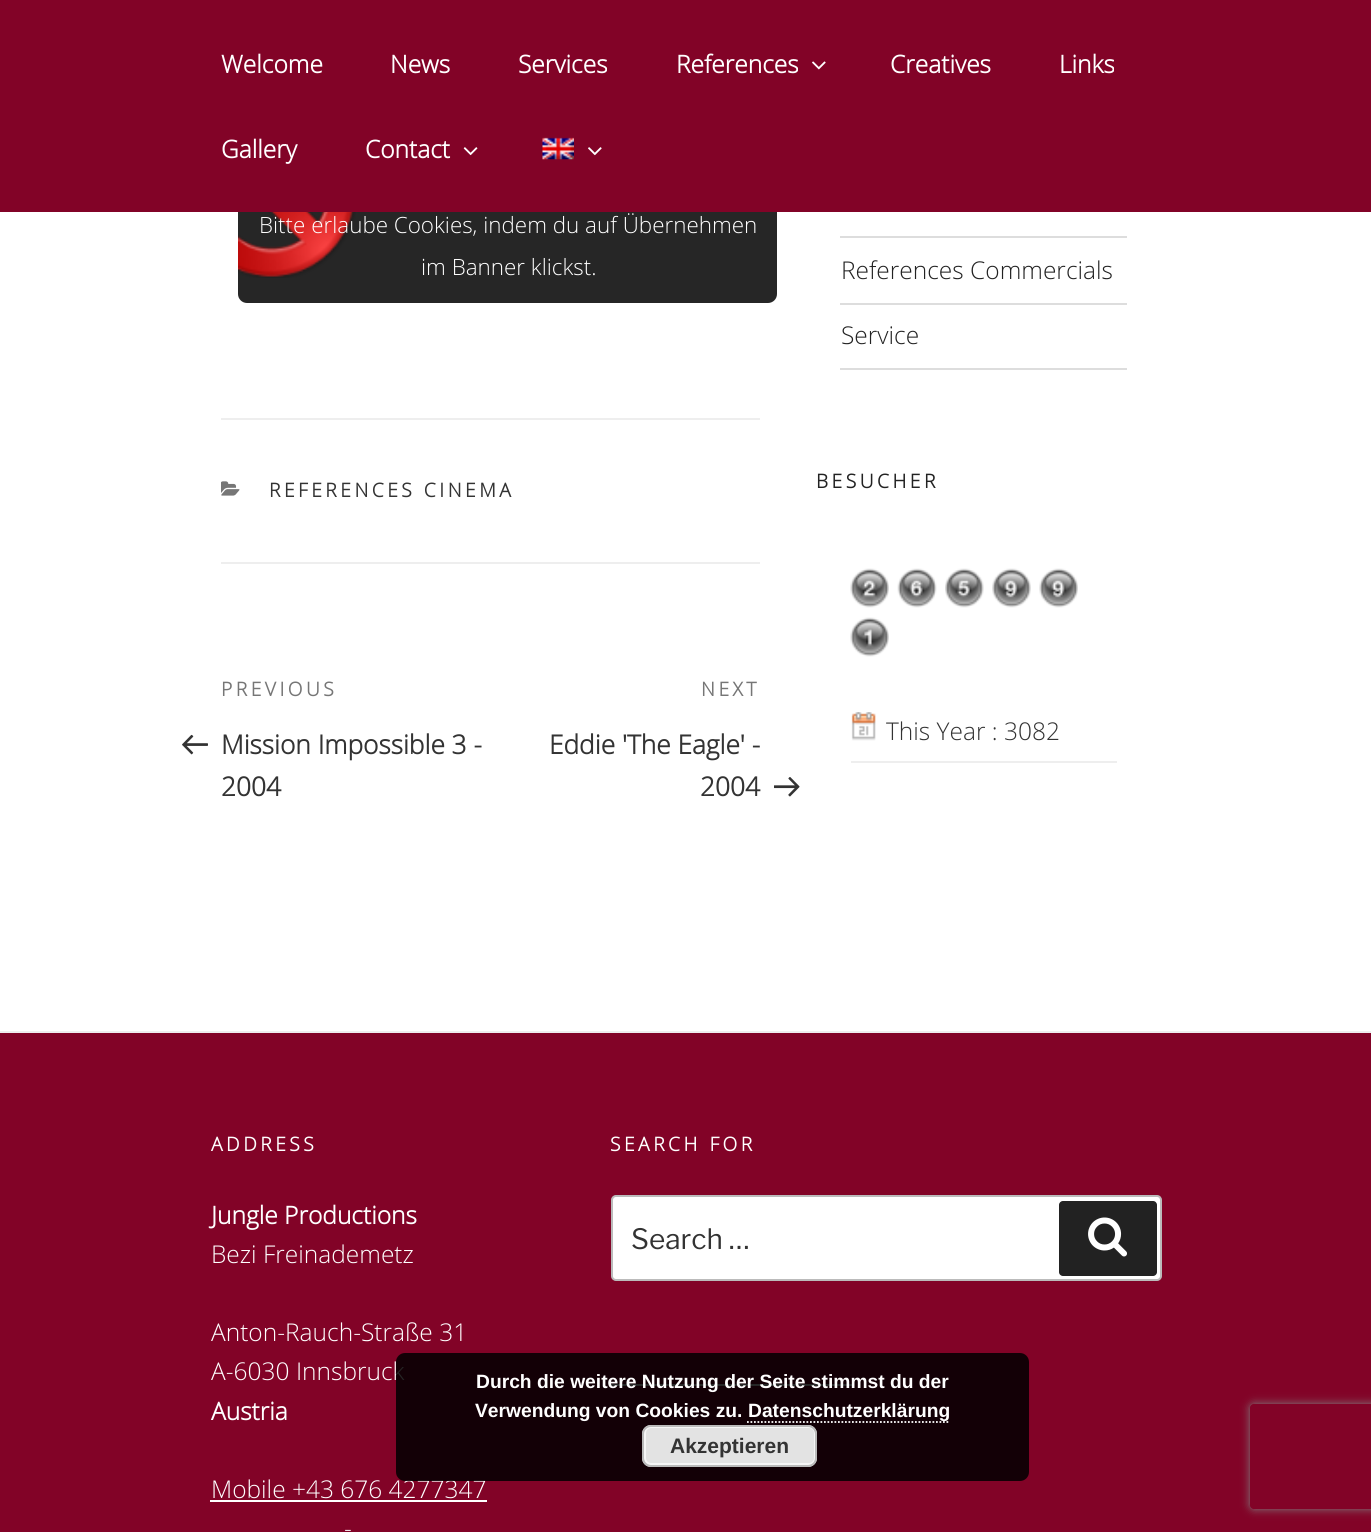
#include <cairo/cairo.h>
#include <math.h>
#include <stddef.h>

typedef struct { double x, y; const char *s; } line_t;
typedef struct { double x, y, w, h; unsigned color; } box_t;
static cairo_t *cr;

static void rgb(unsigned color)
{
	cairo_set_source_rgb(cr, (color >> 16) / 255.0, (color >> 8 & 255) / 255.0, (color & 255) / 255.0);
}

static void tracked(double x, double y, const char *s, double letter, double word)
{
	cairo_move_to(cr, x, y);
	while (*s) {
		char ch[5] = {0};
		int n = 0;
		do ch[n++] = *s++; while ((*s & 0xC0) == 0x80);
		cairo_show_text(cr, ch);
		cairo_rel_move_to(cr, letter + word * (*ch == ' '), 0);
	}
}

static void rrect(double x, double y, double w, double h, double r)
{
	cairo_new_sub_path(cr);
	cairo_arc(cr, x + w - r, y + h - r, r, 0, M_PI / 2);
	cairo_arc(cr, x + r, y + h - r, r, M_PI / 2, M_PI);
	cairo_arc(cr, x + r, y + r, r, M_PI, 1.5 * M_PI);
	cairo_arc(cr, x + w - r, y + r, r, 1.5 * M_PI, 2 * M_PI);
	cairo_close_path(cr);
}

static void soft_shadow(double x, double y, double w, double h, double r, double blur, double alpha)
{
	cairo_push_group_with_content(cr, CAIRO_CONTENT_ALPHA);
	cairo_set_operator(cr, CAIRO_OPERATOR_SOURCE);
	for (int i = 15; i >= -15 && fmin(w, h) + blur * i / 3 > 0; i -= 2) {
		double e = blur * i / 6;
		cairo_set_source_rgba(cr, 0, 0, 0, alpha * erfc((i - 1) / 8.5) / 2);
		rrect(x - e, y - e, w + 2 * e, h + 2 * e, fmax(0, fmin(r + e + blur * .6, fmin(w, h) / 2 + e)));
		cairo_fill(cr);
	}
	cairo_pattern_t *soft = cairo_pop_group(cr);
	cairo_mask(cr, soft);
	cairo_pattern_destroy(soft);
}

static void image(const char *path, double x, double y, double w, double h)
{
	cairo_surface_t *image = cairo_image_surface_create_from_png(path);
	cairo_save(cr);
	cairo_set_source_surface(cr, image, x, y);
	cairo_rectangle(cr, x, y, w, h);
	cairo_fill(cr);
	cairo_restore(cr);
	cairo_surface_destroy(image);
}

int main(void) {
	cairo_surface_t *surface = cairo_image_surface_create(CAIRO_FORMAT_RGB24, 1371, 1532);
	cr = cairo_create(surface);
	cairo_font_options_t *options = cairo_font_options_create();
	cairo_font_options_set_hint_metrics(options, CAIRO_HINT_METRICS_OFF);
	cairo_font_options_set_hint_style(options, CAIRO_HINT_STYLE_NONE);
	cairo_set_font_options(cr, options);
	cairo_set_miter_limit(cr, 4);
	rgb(0xffffff);
	cairo_paint(cr);
	rgb(0x262626);
	rrect(238, 142, 539, 161, 9);
	cairo_fill(cr);
	rgb(0x820327);
	cairo_rectangle(cr, 0, 0, 1371, 212);
	cairo_fill(cr);
	image("img/1.png", 812, 61, 14, 9);
	image("img/2.png", 463, 147, 15, 9);
	image("img/3.png", 542, 137, 32, 23);
	image("img/4.png", 588, 147, 14, 9);
	image("img/5.png", 238, 212, 118, 66);
	rgb(0xeeeeee);
	cairo_rectangle(cr, 221, 418, 539, 2);
	cairo_fill(cr);
	cairo_rectangle(cr, 221, 562, 539, 2);
	cairo_fill(cr);
	image("img/6.png", 221, 481, 19, 15);
	image("img/7.png", 182, 734, 26, 21);
	image("img/8.png", 774, 777, 26, 20);
	{
		static const box_t items[] = {
			{840, 236, 287, 2, 0xdddddd},
			{840, 303, 287, 2, 0xdddddd},
			{840, 368, 287, 2, 0xdddddd},
		};
		for (size_t i = 0; i < sizeof items / sizeof *items; i++) {
			rgb(items[i].color);
			cairo_rectangle(cr, items[i].x, items[i].y, items[i].w, items[i].h);
			cairo_fill(cr);
		}
	}
	image("img/9.png", 850, 568, 39, 40);
	image("img/10.png", 897, 568, 40, 40);
	image("img/11.png", 945, 568, 39, 40);
	image("img/12.png", 992, 568, 39, 40);
	image("img/13.png", 1039, 568, 39, 40);
	image("img/14.png", 850, 617, 39, 40);
	rgb(0xeeeeee);
	cairo_rectangle(cr, 851, 761, 266, 2);
	cairo_fill(cr);
	image("img/15.png", 851, 712, 25, 29);
	{
		static const box_t items[] = {
			{0, 1033, 1371, 499, 0x820327},
			{0, 1031, 1371, 2, 0xeeeeee},
			{210, 1500, 277, 2, 0xffffff},
		};
		for (size_t i = 0; i < sizeof items / sizeof *items; i++) {
			rgb(items[i].color);
			cairo_rectangle(cr, items[i].x, items[i].y, items[i].w, items[i].h);
			cairo_fill(cr);
		}
	}
	rrect(612, 1196, 549, 84, 4);
	cairo_fill_preserve(cr);
	rgb(0xbbbbbb);
	cairo_stroke(cr);
	rgb(0x222222);
	rrect(1059, 1201, 98, 75, 4);
	cairo_fill(cr);
	image("img/16.png", 1088, 1217, 39, 40);
	rgb(0xffffff);
	cairo_rectangle(cr, 611, 1384, 241, 2);
	cairo_fill(cr);
	cairo_save(cr);
	cairo_set_fill_rule(cr, CAIRO_FILL_RULE_EVEN_ODD);
	cairo_new_path(cr);
	cairo_move_to(cr, 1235, 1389);
	cairo_line_to(cr, 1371, 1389);
	cairo_line_to(cr, 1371, 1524);
	cairo_line_to(cr, 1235, 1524);
	cairo_close_path(cr);
	cairo_move_to(cr, 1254, 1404);
	cairo_line_to(cr, 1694, 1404);
	cairo_curve_to(cr, 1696, 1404, 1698, 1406, 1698, 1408);
	cairo_line_to(cr, 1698, 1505);
	cairo_curve_to(cr, 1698, 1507, 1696, 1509, 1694, 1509);
	cairo_line_to(cr, 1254, 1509);
	cairo_curve_to(cr, 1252, 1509, 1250, 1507, 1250, 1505);
	cairo_line_to(cr, 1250, 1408);
	cairo_curve_to(cr, 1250, 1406, 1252, 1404, 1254, 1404);
	cairo_close_path(cr);
	cairo_clip(cr);
	rgb(0x808080);
	soft_shadow(1250, 1404, 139, 105, 4, 4.5, 1);
	cairo_restore(cr);
	cairo_select_font_face(cr, "Open Sans", CAIRO_FONT_SLANT_NORMAL, CAIRO_FONT_WEIGHT_BOLD);
	cairo_set_font_size(cr, 24.5);
	{
		static const line_t items[] = {
			{221, 73, "Welcome"},
			{390, 73, "News"},
			{518, 73, "Services"},
			{676, 73, "References"},
			{890, 73, "Creatives"},
			{1059, 73, "Links"},
			{221, 158, "Gallery"},
			{365, 158, "Contact"},
		};
		for (size_t i = 0; i < sizeof items / sizeof *items; i++) {
			cairo_move_to(cr, items[i].x, items[i].y);
			cairo_show_text(cr, items[i].s);
		}
	}
	cairo_select_font_face(cr, "Open Sans Light", CAIRO_FONT_SLANT_NORMAL, CAIRO_FONT_WEIGHT_NORMAL);
	cairo_set_font_size(cr, 22.4);
	cairo_move_to(cr, 259, 233);
	cairo_show_text(cr, "Bitte erlaube Cookies, indem du auf Übernehmen");
	cairo_move_to(cr, 421, 275);
	cairo_show_text(cr, "im Banner klickst.");
	cairo_select_font_face(cr, "Open Sans", CAIRO_FONT_SLANT_NORMAL, CAIRO_FONT_WEIGHT_BOLD);
	cairo_set_font_size(cr, 19.25);
	rgb(0x333333);
	tracked(269, 497, "REFERENCES CINEMA", 3.5, 0);
	rgb(0x767676);
	tracked(221, 696, "PREVIOUS", 3.5, 0);
	cairo_set_font_size(cr, 26.25);
	rgb(0x333333);
	cairo_move_to(cr, 221, 754);
	cairo_show_text(cr, "Mission Impossible 3 -");
	cairo_move_to(cr, 221, 796);
	cairo_show_text(cr, "2004");
	cairo_set_font_size(cr, 19.25);
	rgb(0x767676);
	tracked(701, 696, "NEXT", 3.5, 0);
	cairo_set_font_size(cr, 26.25);
	rgb(0x333333);
	cairo_move_to(cr, 549, 754);
	cairo_show_text(cr, "Eddie 'The Eagle' -");
	cairo_move_to(cr, 700, 796);
	cairo_show_text(cr, "2004");
	cairo_select_font_face(cr, "Open Sans Light", CAIRO_FONT_SLANT_NORMAL, CAIRO_FONT_WEIGHT_NORMAL);
	cairo_set_font_size(cr, 24.5);
	rgb(0x222222);
	cairo_move_to(cr, 841, 279);
	cairo_show_text(cr, "References Commercials");
	cairo_move_to(cr, 841, 344);
	cairo_show_text(cr, "Service");
	cairo_select_font_face(cr, "Open Sans", CAIRO_FONT_SLANT_NORMAL, CAIRO_FONT_WEIGHT_BOLD);
	cairo_set_font_size(cr, 19.25);
	tracked(816, 488, "BESUCHER", 3.5, 0);
	cairo_select_font_face(cr, "Open Sans Light", CAIRO_FONT_SLANT_NORMAL, CAIRO_FONT_WEIGHT_NORMAL);
	cairo_set_font_size(cr, 24.5);
	rgb(0x333333);
	cairo_move_to(cr, 886, 740);
	cairo_show_text(cr, "This Year : 3082");
	cairo_select_font_face(cr, "Open Sans", CAIRO_FONT_SLANT_NORMAL, CAIRO_FONT_WEIGHT_BOLD);
	cairo_set_font_size(cr, 19.25);
	rgb(0xffffff);
	tracked(211, 1151, "ADDRESS", 3.5, 0);
	cairo_set_font_size(cr, 24.5);
	cairo_move_to(cr, 211, 1224);
	cairo_show_text(cr, "Jungle Productions");
	cairo_select_font_face(cr, "Open Sans Light", CAIRO_FONT_SLANT_NORMAL, CAIRO_FONT_WEIGHT_NORMAL);
	{
		static const line_t items[] = {
			{211, 1263, "Bezi Freinademetz"},
			{211, 1341, "Anton-Rauch-Straße 31"},
			{211, 1380, "A-6030 Innsbruck"},
		};
		for (size_t i = 0; i < sizeof items / sizeof *items; i++) {
			cairo_move_to(cr, items[i].x, items[i].y);
			cairo_show_text(cr, items[i].s);
		}
	}
	cairo_select_font_face(cr, "Open Sans", CAIRO_FONT_SLANT_NORMAL, CAIRO_FONT_WEIGHT_BOLD);
	cairo_move_to(cr, 211, 1420);
	cairo_show_text(cr, "Austria");
	cairo_select_font_face(cr, "Open Sans Light", CAIRO_FONT_SLANT_NORMAL, CAIRO_FONT_WEIGHT_NORMAL);
	cairo_move_to(cr, 211, 1498);
	cairo_show_text(cr, "Mobile +43 676 4277347");
	cairo_move_to(cr, 344, 1537);
	cairo_show_text(cr, "-");
	cairo_select_font_face(cr, "Open Sans", CAIRO_FONT_SLANT_NORMAL, CAIRO_FONT_WEIGHT_BOLD);
	cairo_set_font_size(cr, 19.25);
	tracked(610, 1151, "SEARCH FOR", 3.5, 0);
	cairo_select_font_face(cr, "Libre Franklin Thin", CAIRO_FONT_SLANT_NORMAL, CAIRO_FONT_WEIGHT_NORMAL);
	cairo_set_font_size(cr, 28);
	rgb(0x333333);
	cairo_move_to(cr, 631, 1249);
	cairo_show_text(cr, "Search …");
	cairo_set_source_rgba(cr, 0, 0, 0, 0.85);
	rrect(396, 1353, 633, 128, 9);
	cairo_fill(cr);
	cairo_select_font_face(cr, "Liberation Sans", CAIRO_FONT_SLANT_NORMAL, CAIRO_FONT_WEIGHT_BOLD);
	cairo_set_font_size(cr, 19.25);
	rgb(0xffffff);
	cairo_move_to(cr, 476, 1388);
	cairo_show_text(cr, "Durch die weitere Nutzung der Seite stimmst du der");
	cairo_move_to(cr, 475, 1417);
	cairo_show_text(cr, "Verwendung von Cookies zu.");
	cairo_new_path(cr);
	cairo_move_to(cr, 747, 1422);
	cairo_line_to(cr, 950, 1422);
	cairo_set_line_width(cr, 1.8);
	cairo_set_dash(cr, (double[]){1.75, 1.75}, 2, 0);
	cairo_stroke(cr);
	cairo_move_to(cr, 748, 1417);
	cairo_show_text(cr, "Datenschutzerklärung");
	rgb(0xe3e3e3);
	rrect(642, 1425, 175, 42, 9);
	cairo_fill(cr);
	rrect(645, 1427, 170, 37, 6);
	rgb(0xf6f6f6);
	cairo_set_line_width(cr, 2);
	cairo_set_dash(cr, NULL, 0, 0);
	cairo_stroke(cr);
	rrect(643, 1426, 173, 40, 8);
	rgb(0xbbbbbb);
	cairo_stroke(cr);
	cairo_set_font_size(cr, 21);
	rgb(0x333333);
	cairo_move_to(cr, 670, 1453);
	cairo_show_text(cr, "Akzeptieren");
	cairo_surface_write_to_png(surface, "page.png");
	cairo_font_options_destroy(options);
	cairo_destroy(cr);
	cairo_surface_destroy(surface);
	return 0;
}
